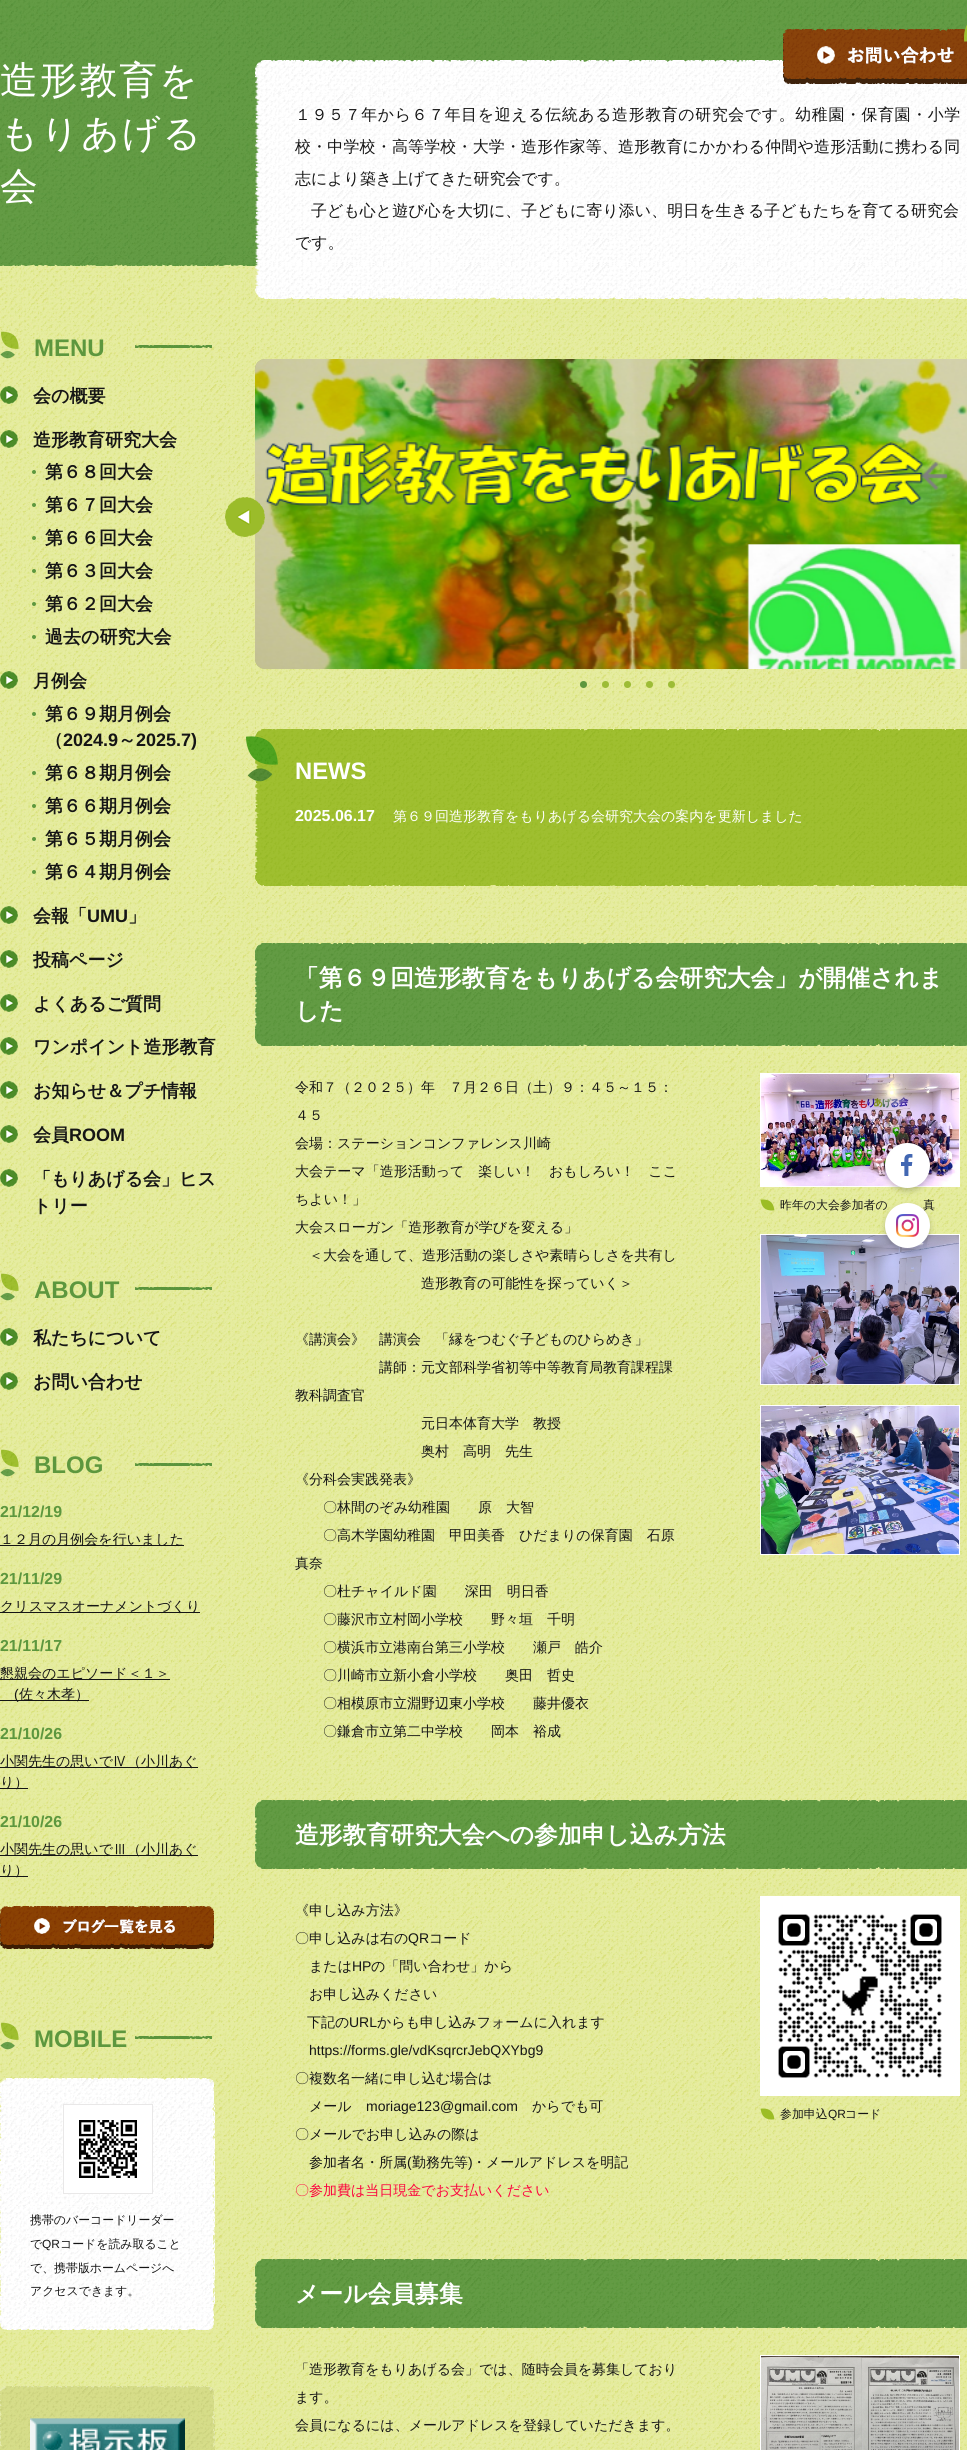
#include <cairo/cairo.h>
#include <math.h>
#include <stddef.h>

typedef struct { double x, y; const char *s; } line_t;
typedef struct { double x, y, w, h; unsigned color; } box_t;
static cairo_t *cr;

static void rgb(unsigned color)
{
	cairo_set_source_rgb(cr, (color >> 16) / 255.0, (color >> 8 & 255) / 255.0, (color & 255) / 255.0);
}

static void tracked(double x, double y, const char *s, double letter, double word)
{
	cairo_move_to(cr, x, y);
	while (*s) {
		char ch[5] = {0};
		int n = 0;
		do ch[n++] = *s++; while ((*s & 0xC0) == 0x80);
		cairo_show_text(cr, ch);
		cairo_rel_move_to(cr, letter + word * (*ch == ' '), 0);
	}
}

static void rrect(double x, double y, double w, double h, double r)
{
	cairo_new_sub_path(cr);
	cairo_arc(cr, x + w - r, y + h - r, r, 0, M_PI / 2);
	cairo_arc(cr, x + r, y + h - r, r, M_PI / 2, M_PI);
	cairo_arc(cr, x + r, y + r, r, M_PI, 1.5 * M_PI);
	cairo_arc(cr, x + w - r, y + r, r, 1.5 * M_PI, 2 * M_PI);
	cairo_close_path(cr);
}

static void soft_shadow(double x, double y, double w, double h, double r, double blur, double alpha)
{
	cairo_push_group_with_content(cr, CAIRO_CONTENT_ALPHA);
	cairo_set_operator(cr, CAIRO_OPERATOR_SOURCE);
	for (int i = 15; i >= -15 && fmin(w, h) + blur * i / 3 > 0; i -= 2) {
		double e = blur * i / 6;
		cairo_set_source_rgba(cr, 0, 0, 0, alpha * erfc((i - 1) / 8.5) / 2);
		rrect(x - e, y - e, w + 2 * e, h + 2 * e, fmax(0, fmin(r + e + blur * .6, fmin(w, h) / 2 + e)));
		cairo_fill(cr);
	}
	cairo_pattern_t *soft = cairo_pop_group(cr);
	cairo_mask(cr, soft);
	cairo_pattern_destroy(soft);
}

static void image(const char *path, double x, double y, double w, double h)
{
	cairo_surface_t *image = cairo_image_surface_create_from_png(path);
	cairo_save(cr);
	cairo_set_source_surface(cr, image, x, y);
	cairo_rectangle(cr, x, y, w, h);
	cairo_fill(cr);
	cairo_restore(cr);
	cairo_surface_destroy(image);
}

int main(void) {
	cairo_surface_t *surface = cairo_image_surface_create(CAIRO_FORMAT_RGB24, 967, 2450);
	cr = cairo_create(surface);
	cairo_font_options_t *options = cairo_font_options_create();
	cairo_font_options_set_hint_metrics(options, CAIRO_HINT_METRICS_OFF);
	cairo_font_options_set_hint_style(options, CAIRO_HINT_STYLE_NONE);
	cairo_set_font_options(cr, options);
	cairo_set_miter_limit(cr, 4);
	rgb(0xffffff);
	cairo_paint(cr);
	image("img/1.png", 0, 264, 967, 2186);
	image("img/2.png", 0, 0, 967, 263);
	image("img/3.png", 0, 263, 259, 3);
	image("img/4.png", 0, 331, 212, 28);
	image("img/5.png", 0, 386, 18, 18);
	image("img/6.png", 0, 430, 18, 18);
	rgb(0x5d973e);
	cairo_arc(cr, 34, 472, 2, 0, 2 * M_PI);
	cairo_fill(cr);
	cairo_arc(cr, 34, 505, 2, 0, 2 * M_PI);
	cairo_fill(cr);
	cairo_arc(cr, 34, 538, 2, 0, 2 * M_PI);
	cairo_fill(cr);
	cairo_arc(cr, 34, 571, 2, 0, 2 * M_PI);
	cairo_fill(cr);
	cairo_arc(cr, 34, 604, 2, 0, 2 * M_PI);
	cairo_fill(cr);
	cairo_arc(cr, 34, 637, 2, 0, 2 * M_PI);
	cairo_fill(cr);
	image("img/7.png", 0, 671, 18, 18);
	cairo_arc(cr, 34, 714, 2, 0, 2 * M_PI);
	cairo_fill(cr);
	cairo_arc(cr, 34, 773, 2, 0, 2 * M_PI);
	cairo_fill(cr);
	cairo_arc(cr, 34, 806, 2, 0, 2 * M_PI);
	cairo_fill(cr);
	cairo_arc(cr, 34, 839, 2, 0, 2 * M_PI);
	cairo_fill(cr);
	cairo_arc(cr, 34, 872, 2, 0, 2 * M_PI);
	cairo_fill(cr);
	image("img/8.png", 0, 906, 18, 18);
	image("img/9.png", 0, 950, 18, 18);
	image("img/10.png", 0, 994, 18, 18);
	image("img/11.png", 0, 1037, 18, 18);
	image("img/12.png", 0, 1081, 18, 18);
	image("img/13.png", 0, 1125, 18, 18);
	image("img/14.png", 0, 1169, 18, 18);
	image("img/15.png", 0, 1273, 212, 28);
	image("img/16.png", 0, 1328, 18, 18);
	image("img/17.png", 0, 1372, 18, 18);
	image("img/18.png", 0, 1449, 212, 28);
	{
		static const box_t items[] = {
			{0, 1545, 184, 1, 0x151515},
			{0, 1612, 200, 1, 0x151515},
			{0, 1679, 170, 1, 0x151515},
			{0, 1700, 89, 1, 0x151515},
			{0, 1767, 198, 1, 0x151515},
			{0, 1788, 28, 1, 0x151515},
			{0, 1855, 198, 1, 0x151515},
			{0, 1876, 28, 1, 0x151515},
		};
		for (size_t i = 0; i < sizeof items / sizeof *items; i++) {
			rgb(items[i].color);
			cairo_rectangle(cr, items[i].x, items[i].y, items[i].w, items[i].h);
			cairo_fill(cr);
		}
	}
	image("img/19.png", 0, 1906, 214, 43);
	image("img/20.png", 0, 2022, 212, 28);
	image("img/21.png", 0, 2104, 215, 200);
	image("img/22.png", 0, 2078, 214, 26);
	rgb(0xffffff);
	cairo_rectangle(cr, 63.5, 2104.5, 89, 89);
	cairo_fill_preserve(cr);
	rgb(0xe9e8e8);
	cairo_set_line_width(cr, 1);
	cairo_stroke(cr);
	image("img/23.png", 79, 2120, 58, 58);
	image("img/24.png", 0, 2304, 214, 26);
	image("img/25.png", 0, 2414, 215, 36);
	image("img/26.png", 0, 2386, 214, 28);
	image("img/27.png", 30, 2418, 155, 32);
	image("img/28.png", 255, 94, 712, 170);
	image("img/30.png", 255, 60, 712, 34);
	image("img/29.png", 783, 25, 184, 59);
	image("img/31.png", 255, 264, 712, 35);
	cairo_set_source_rgba(cr, 0, 0, 0, 0.2);
	rrect(255, 359, 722, 310, 10);
	cairo_fill(cr);
	image("img/32.png", 255, 359, 712, 310);
	image("img/33.png", 225, 497, 40, 40);
	rgb(0x5d973e);
	cairo_arc(cr, 583.5, 684.5, 3.5, 0, 2 * M_PI);
	cairo_fill(cr);
	rgb(0x9dbc36);
	cairo_arc(cr, 605.5, 684.5, 3.5, 0, 2 * M_PI);
	cairo_fill(cr);
	cairo_arc(cr, 627.5, 684.5, 3.5, 0, 2 * M_PI);
	cairo_fill(cr);
	cairo_arc(cr, 649.5, 684.5, 3.5, 0, 2 * M_PI);
	cairo_fill(cr);
	cairo_arc(cr, 671.5, 684.5, 3.5, 0, 2 * M_PI);
	cairo_fill(cr);
	image("img/34.png", 255, 760, 712, 91);
	image("img/35.png", 246, 729, 721, 53);
	image("img/36.png", 255, 851, 712, 35);
	image("img/37.png", 255, 961, 712, 67);
	image("img/38.png", 255, 943, 712, 18);
	image("img/39.png", 255, 1028, 712, 18);
	cairo_rectangle(cr, 760.5, 1073.5, 199, 113);
	rgb(0xffffff);
	cairo_stroke(cr);
	image("img/40.png", 761, 1074, 198, 112);
	image("img/41.png", 760, 1199, 15, 12);
	cairo_rectangle(cr, 760.5, 1234.5, 199, 150);
	cairo_stroke(cr);
	image("img/42.png", 761, 1235, 198, 149);
	cairo_rectangle(cr, 760.5, 1405.5, 199, 149);
	cairo_stroke(cr);
	image("img/43.png", 761, 1406, 198, 148);
	image("img/44.png", 255, 1818, 712, 33);
	image("img/45.png", 255, 1800, 712, 18);
	image("img/46.png", 255, 1851, 712, 18);
	cairo_rectangle(cr, 760.5, 1896.5, 199, 199);
	cairo_stroke(cr);
	image("img/47.png", 761, 1897, 198, 198);
	image("img/48.png", 760, 2108, 15, 12);
	image("img/49.png", 255, 2277, 712, 33);
	image("img/50.png", 255, 2259, 712, 18);
	image("img/51.png", 255, 2310, 712, 18);
	cairo_rectangle(cr, 760.5, 2355.5, 199, 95);
	cairo_stroke(cr);
	image("img/52.png", 761, 2356, 198, 94);
	rgb(0x000000);
	soft_shadow(885, 1146, 45, 45, 22.5, 3, 0.2);
	rgb(0xffffff);
	cairo_arc(cr, 907.5, 1165.5, 22.5, 0, 2 * M_PI);
	cairo_fill(cr);
	image("img/53.png", 901, 1154, 12, 22);
	rgb(0x000000);
	soft_shadow(885, 1206, 45, 45, 22.5, 3, 0.2);
	cairo_select_font_face(cr, "WenQuanYi Zen Hei Medium", CAIRO_FONT_SLANT_NORMAL, CAIRO_FONT_WEIGHT_NORMAL);
	cairo_set_font_size(cr, 37.75);
	rgb(0xffffff);
	{
		static const line_t items[] = {
			{0, 93, "造形教育を"},
			{0, 146, "もりあげる"},
			{0, 199, "会"},
		};
		for (size_t i = 0; i < sizeof items / sizeof *items; i++) {
			tracked(items[i].x, items[i].y, items[i].s, 2, 0);
		}
	}
	cairo_select_font_face(cr, "Liberation Sans", CAIRO_FONT_SLANT_NORMAL, CAIRO_FONT_WEIGHT_BOLD);
	cairo_set_font_size(cr, 24);
	rgb(0x5d973e);
	cairo_move_to(cr, 34, 356);
	cairo_show_text(cr, "MENU");
	cairo_select_font_face(cr, "WenQuanYi Zen Hei", CAIRO_FONT_SLANT_NORMAL, CAIRO_FONT_WEIGHT_BOLD);
	cairo_set_font_size(cr, 18);
	rgb(0x151515);
	{
		static const line_t items[] = {
			{33, 402, "会の概要"},
			{33, 446, "造形教育研究大会"},
			{45, 478, "第６８回大会"},
			{45, 511, "第６７回大会"},
			{45, 544, "第６６回大会"},
			{45, 577, "第６３回大会"},
			{45, 610, "第６２回大会"},
			{45, 643, "過去の研究大会"},
			{33, 687, "月例会"},
			{45, 720, "第６９期月例会"},
			{45, 746, "（"},
		};
		for (size_t i = 0; i < sizeof items / sizeof *items; i++) {
			cairo_move_to(cr, items[i].x, items[i].y);
			cairo_show_text(cr, items[i].s);
		}
	}
	cairo_select_font_face(cr, "Liberation Sans", CAIRO_FONT_SLANT_NORMAL, CAIRO_FONT_WEIGHT_BOLD);
	cairo_move_to(cr, 63, 746);
	cairo_show_text(cr, "2024.9");
	cairo_select_font_face(cr, "WenQuanYi Zen Hei", CAIRO_FONT_SLANT_NORMAL, CAIRO_FONT_WEIGHT_BOLD);
	cairo_move_to(cr, 118, 746);
	cairo_show_text(cr, "～");
	cairo_select_font_face(cr, "Liberation Sans", CAIRO_FONT_SLANT_NORMAL, CAIRO_FONT_WEIGHT_BOLD);
	cairo_move_to(cr, 136, 746);
	cairo_show_text(cr, "2025.7)");
	cairo_select_font_face(cr, "WenQuanYi Zen Hei", CAIRO_FONT_SLANT_NORMAL, CAIRO_FONT_WEIGHT_BOLD);
	{
		static const line_t items[] = {
			{45, 779, "第６８期月例会"},
			{45, 812, "第６６期月例会"},
			{45, 845, "第６５期月例会"},
			{45, 878, "第６４期月例会"},
			{33, 922, "会報「"},
		};
		for (size_t i = 0; i < sizeof items / sizeof *items; i++) {
			cairo_move_to(cr, items[i].x, items[i].y);
			cairo_show_text(cr, items[i].s);
		}
	}
	cairo_select_font_face(cr, "Liberation Sans", CAIRO_FONT_SLANT_NORMAL, CAIRO_FONT_WEIGHT_BOLD);
	cairo_move_to(cr, 87, 922);
	cairo_show_text(cr, "UMU");
	cairo_select_font_face(cr, "WenQuanYi Zen Hei", CAIRO_FONT_SLANT_NORMAL, CAIRO_FONT_WEIGHT_BOLD);
	{
		static const line_t items[] = {
			{128, 922, "」"},
			{33, 966, "投稿ページ"},
			{33, 1010, "よくあるご質問"},
			{33, 1053, "ワンポイント造形教育"},
			{33, 1097, "お知らせ＆プチ情報"},
			{33, 1141, "会員"},
		};
		for (size_t i = 0; i < sizeof items / sizeof *items; i++) {
			cairo_move_to(cr, items[i].x, items[i].y);
			cairo_show_text(cr, items[i].s);
		}
	}
	cairo_select_font_face(cr, "Liberation Sans", CAIRO_FONT_SLANT_NORMAL, CAIRO_FONT_WEIGHT_BOLD);
	cairo_move_to(cr, 69, 1141);
	cairo_show_text(cr, "ROOM");
	cairo_select_font_face(cr, "WenQuanYi Zen Hei", CAIRO_FONT_SLANT_NORMAL, CAIRO_FONT_WEIGHT_BOLD);
	cairo_move_to(cr, 33, 1185);
	cairo_show_text(cr, "「もりあげる会」ヒス");
	cairo_move_to(cr, 33, 1212);
	cairo_show_text(cr, "トリー");
	cairo_select_font_face(cr, "Liberation Sans", CAIRO_FONT_SLANT_NORMAL, CAIRO_FONT_WEIGHT_BOLD);
	cairo_set_font_size(cr, 24);
	rgb(0x5d973e);
	cairo_move_to(cr, 34, 1298);
	cairo_show_text(cr, "ABOUT");
	cairo_select_font_face(cr, "WenQuanYi Zen Hei", CAIRO_FONT_SLANT_NORMAL, CAIRO_FONT_WEIGHT_BOLD);
	cairo_set_font_size(cr, 18);
	rgb(0x151515);
	cairo_move_to(cr, 33, 1344);
	cairo_show_text(cr, "私たちについて");
	cairo_move_to(cr, 33, 1388);
	cairo_show_text(cr, "お問い合わせ");
	cairo_select_font_face(cr, "Liberation Sans", CAIRO_FONT_SLANT_NORMAL, CAIRO_FONT_WEIGHT_BOLD);
	cairo_set_font_size(cr, 24);
	rgb(0x5d973e);
	cairo_move_to(cr, 34, 1473);
	cairo_show_text(cr, "BLOG");
	cairo_set_font_size(cr, 15.95);
	cairo_move_to(cr, 0, 1517);
	cairo_show_text(cr, "21/12/19");
	cairo_select_font_face(cr, "WenQuanYi Zen Hei Medium", CAIRO_FONT_SLANT_NORMAL, CAIRO_FONT_WEIGHT_NORMAL);
	cairo_set_font_size(cr, 14);
	rgb(0x151515);
	cairo_move_to(cr, 0, 1544);
	cairo_show_text(cr, "１２月の月例会を行いました");
	cairo_select_font_face(cr, "Liberation Sans", CAIRO_FONT_SLANT_NORMAL, CAIRO_FONT_WEIGHT_BOLD);
	cairo_set_font_size(cr, 15.95);
	rgb(0x5d973e);
	cairo_move_to(cr, 0, 1584);
	cairo_show_text(cr, "21/11/29");
	cairo_select_font_face(cr, "WenQuanYi Zen Hei Medium", CAIRO_FONT_SLANT_NORMAL, CAIRO_FONT_WEIGHT_NORMAL);
	cairo_set_font_size(cr, 14);
	rgb(0x151515);
	cairo_move_to(cr, 0, 1611);
	cairo_show_text(cr, "クリスマスオーナメントづくり");
	cairo_select_font_face(cr, "Liberation Sans", CAIRO_FONT_SLANT_NORMAL, CAIRO_FONT_WEIGHT_BOLD);
	cairo_set_font_size(cr, 15.95);
	rgb(0x5d973e);
	cairo_move_to(cr, 0, 1651);
	cairo_show_text(cr, "21/11/17");
	cairo_select_font_face(cr, "WenQuanYi Zen Hei Medium", CAIRO_FONT_SLANT_NORMAL, CAIRO_FONT_WEIGHT_NORMAL);
	cairo_set_font_size(cr, 14);
	rgb(0x151515);
	cairo_move_to(cr, 0, 1678);
	cairo_show_text(cr, "懇親会のエピソード＜１＞");
	cairo_select_font_face(cr, "Liberation Sans", CAIRO_FONT_SLANT_NORMAL, CAIRO_FONT_WEIGHT_NORMAL);
	cairo_move_to(cr, 14, 1699);
	cairo_show_text(cr, "(");
	cairo_select_font_face(cr, "WenQuanYi Zen Hei Medium", CAIRO_FONT_SLANT_NORMAL, CAIRO_FONT_WEIGHT_NORMAL);
	cairo_move_to(cr, 19, 1699);
	cairo_show_text(cr, "佐々木孝）");
	cairo_select_font_face(cr, "Liberation Sans", CAIRO_FONT_SLANT_NORMAL, CAIRO_FONT_WEIGHT_BOLD);
	cairo_set_font_size(cr, 15.95);
	rgb(0x5d973e);
	cairo_move_to(cr, 0, 1739);
	cairo_show_text(cr, "21/10/26");
	cairo_select_font_face(cr, "WenQuanYi Zen Hei Medium", CAIRO_FONT_SLANT_NORMAL, CAIRO_FONT_WEIGHT_NORMAL);
	cairo_set_font_size(cr, 14);
	rgb(0x151515);
	cairo_move_to(cr, 0, 1766);
	cairo_show_text(cr, "小関先生の思いでⅣ（小川あぐ");
	cairo_move_to(cr, 0, 1787);
	cairo_show_text(cr, "り）");
	cairo_select_font_face(cr, "Liberation Sans", CAIRO_FONT_SLANT_NORMAL, CAIRO_FONT_WEIGHT_BOLD);
	cairo_set_font_size(cr, 15.95);
	rgb(0x5d973e);
	cairo_move_to(cr, 0, 1827);
	cairo_show_text(cr, "21/10/26");
	cairo_select_font_face(cr, "WenQuanYi Zen Hei Medium", CAIRO_FONT_SLANT_NORMAL, CAIRO_FONT_WEIGHT_NORMAL);
	cairo_set_font_size(cr, 14);
	rgb(0x151515);
	cairo_move_to(cr, 0, 1854);
	cairo_show_text(cr, "小関先生の思いでⅢ（小川あぐ");
	cairo_move_to(cr, 0, 1875);
	cairo_show_text(cr, "り）");
	cairo_select_font_face(cr, "Liberation Sans", CAIRO_FONT_SLANT_NORMAL, CAIRO_FONT_WEIGHT_BOLD);
	cairo_set_font_size(cr, 24);
	rgb(0x5d973e);
	cairo_move_to(cr, 34, 2047);
	cairo_show_text(cr, "MOBILE");
	cairo_select_font_face(cr, "WenQuanYi Zen Hei Medium", CAIRO_FONT_SLANT_NORMAL, CAIRO_FONT_WEIGHT_NORMAL);
	cairo_set_font_size(cr, 11.9);
	rgb(0x151515);
	cairo_move_to(cr, 30, 2224);
	cairo_show_text(cr, "携帯のバーコードリーダー");
	cairo_move_to(cr, 30, 2248);
	cairo_show_text(cr, "で");
	cairo_select_font_face(cr, "Liberation Sans", CAIRO_FONT_SLANT_NORMAL, CAIRO_FONT_WEIGHT_NORMAL);
	cairo_move_to(cr, 42, 2248);
	cairo_show_text(cr, "QR");
	cairo_select_font_face(cr, "WenQuanYi Zen Hei Medium", CAIRO_FONT_SLANT_NORMAL, CAIRO_FONT_WEIGHT_NORMAL);
	{
		static const line_t items[] = {
			{60, 2248, "コードを読み取ること"},
			{30, 2272, "で、携帯版ホームページへ"},
			{30, 2295, "アクセスできます。"},
		};
		for (size_t i = 0; i < sizeof items / sizeof *items; i++) {
			cairo_move_to(cr, items[i].x, items[i].y);
			cairo_show_text(cr, items[i].s);
		}
	}
	cairo_set_font_size(cr, 15.95);
	tracked(295, 120, "１９５７年から６７年目を迎える伝統ある造形教育の研究会です。幼稚園・保育園・小学", 0.6, 0);
	tracked(295, 152, "校・中学校・高等学校・大学・造形作家等、造形教育にかかわる仲間や造形活動に携わる同", 0.2, 0);
	cairo_move_to(cr, 295, 184);
	cairo_show_text(cr, "志により築き上げてきた研究会です。");
	tracked(311, 216, "子ども心と遊び心を大切に、子どもに寄り添い、明日を生きる子どもたちを育てる研究会", 0.05, 0);
	cairo_move_to(cr, 295, 248);
	cairo_show_text(cr, "です。");
	cairo_select_font_face(cr, "Liberation Sans", CAIRO_FONT_SLANT_NORMAL, CAIRO_FONT_WEIGHT_BOLD);
	cairo_set_font_size(cr, 23.8);
	rgb(0xffffff);
	cairo_move_to(cr, 295, 779);
	cairo_show_text(cr, "NEWS");
	cairo_set_font_size(cr, 15.95);
	cairo_move_to(cr, 295, 821);
	cairo_show_text(cr, "2025.06.17");
	cairo_select_font_face(cr, "WenQuanYi Zen Hei Medium", CAIRO_FONT_SLANT_NORMAL, CAIRO_FONT_WEIGHT_NORMAL);
	cairo_set_font_size(cr, 14);
	cairo_move_to(cr, 393, 821);
	cairo_show_text(cr, "第６９回造形教育をもりあげる会研究大会の案内を更新しました");
	cairo_select_font_face(cr, "WenQuanYi Zen Hei", CAIRO_FONT_SLANT_NORMAL, CAIRO_FONT_WEIGHT_BOLD);
	cairo_set_font_size(cr, 23.8);
	cairo_move_to(cr, 295, 986);
	cairo_show_text(cr, "「第６９回造形教育をもりあげる会研究大会」が開催されま");
	cairo_move_to(cr, 295, 1019);
	cairo_show_text(cr, "した");
	cairo_select_font_face(cr, "WenQuanYi Zen Hei Medium", CAIRO_FONT_SLANT_NORMAL, CAIRO_FONT_WEIGHT_NORMAL);
	cairo_set_font_size(cr, 14);
	rgb(0x151515);
	{
		static const line_t items[] = {
			{295, 1092, "令和７（２０２５）年　７月２６日（土）９：４５～１５："},
			{295, 1120, "４５"},
			{295, 1148, "会場：ステーションコンファレンス川崎"},
			{295, 1176, "大会テーマ「造形活動って　楽しい！　おもしろい！　ここ"},
			{295, 1204, "ちよい！」"},
			{295, 1232, "大会スローガン「造形教育が学びを変える」"},
			{309, 1260, "＜大会を通して、造形活動の楽しさや素晴らしさを共有し"},
			{421, 1288, "造形教育の可能性を探っていく＞"},
			{295, 1344, "《講演会》　講演会　「縁をつむぐ子どものひらめき」"},
			{379, 1372, "講師：元文部科学省初等中等教育局教育課程課"},
			{295, 1400, "教科調査官"},
			{421, 1428, "元日本体育大学　教授"},
			{421, 1456, "奥村　高明　先生"},
			{295, 1484, "《分科会実践発表》"},
			{323, 1512, "〇林間のぞみ幼稚園　　原　大智"},
			{323, 1540, "〇高木学園幼稚園　甲田美香　ひだまりの保育園　石原"},
			{295, 1568, "真奈"},
			{323, 1596, "〇杜チャイルド園　　深田　明日香"},
			{323, 1624, "〇藤沢市立村岡小学校　　野々垣　千明"},
			{323, 1652, "〇横浜市立港南台第三小学校　　瀬戸　皓介"},
			{323, 1680, "〇川崎市立新小倉小学校　　奥田　哲史"},
			{323, 1708, "〇相模原市立淵野辺東小学校　　藤井優衣"},
			{323, 1736, "〇鎌倉市立第二中学校　　岡本　裕成"},
		};
		for (size_t i = 0; i < sizeof items / sizeof *items; i++) {
			cairo_move_to(cr, items[i].x, items[i].y);
			cairo_show_text(cr, items[i].s);
		}
	}
	cairo_set_font_size(cr, 11.9);
	cairo_move_to(cr, 780, 1209);
	cairo_show_text(cr, "昨年の大会参加者の");
	cairo_move_to(cr, 923, 1209);
	cairo_show_text(cr, "真");
	cairo_select_font_face(cr, "WenQuanYi Zen Hei", CAIRO_FONT_SLANT_NORMAL, CAIRO_FONT_WEIGHT_BOLD);
	cairo_set_font_size(cr, 23.8);
	rgb(0xffffff);
	cairo_move_to(cr, 295, 1843);
	cairo_show_text(cr, "造形教育研究大会への参加申し込み方法");
	cairo_select_font_face(cr, "WenQuanYi Zen Hei Medium", CAIRO_FONT_SLANT_NORMAL, CAIRO_FONT_WEIGHT_NORMAL);
	cairo_set_font_size(cr, 14);
	rgb(0x151515);
	cairo_move_to(cr, 295, 1915);
	cairo_show_text(cr, "《申し込み方法》");
	cairo_move_to(cr, 295, 1943);
	cairo_show_text(cr, "〇申し込みは右の");
	cairo_select_font_face(cr, "Liberation Sans", CAIRO_FONT_SLANT_NORMAL, CAIRO_FONT_WEIGHT_NORMAL);
	cairo_move_to(cr, 408, 1943);
	cairo_show_text(cr, "QR");
	cairo_select_font_face(cr, "WenQuanYi Zen Hei Medium", CAIRO_FONT_SLANT_NORMAL, CAIRO_FONT_WEIGHT_NORMAL);
	cairo_move_to(cr, 429, 1943);
	cairo_show_text(cr, "コード");
	cairo_move_to(cr, 309, 1971);
	cairo_show_text(cr, "または");
	cairo_select_font_face(cr, "Liberation Sans", CAIRO_FONT_SLANT_NORMAL, CAIRO_FONT_WEIGHT_NORMAL);
	cairo_move_to(cr, 352, 1971);
	cairo_show_text(cr, "HP");
	cairo_select_font_face(cr, "WenQuanYi Zen Hei Medium", CAIRO_FONT_SLANT_NORMAL, CAIRO_FONT_WEIGHT_NORMAL);
	{
		static const line_t items[] = {
			{371, 1971, "の「問い合わせ」から"},
			{309, 1999, "お申し込みください"},
			{307, 2027, "下記の"},
		};
		for (size_t i = 0; i < sizeof items / sizeof *items; i++) {
			cairo_move_to(cr, items[i].x, items[i].y);
			cairo_show_text(cr, items[i].s);
		}
	}
	cairo_select_font_face(cr, "Liberation Sans", CAIRO_FONT_SLANT_NORMAL, CAIRO_FONT_WEIGHT_NORMAL);
	cairo_move_to(cr, 349, 2027);
	cairo_show_text(cr, "URL");
	cairo_select_font_face(cr, "WenQuanYi Zen Hei Medium", CAIRO_FONT_SLANT_NORMAL, CAIRO_FONT_WEIGHT_NORMAL);
	cairo_move_to(cr, 377, 2027);
	cairo_show_text(cr, "からも申し込みフォームに入れます");
	cairo_select_font_face(cr, "Liberation Sans", CAIRO_FONT_SLANT_NORMAL, CAIRO_FONT_WEIGHT_NORMAL);
	cairo_move_to(cr, 309, 2055);
	cairo_show_text(cr, "https://forms.gle/vdKsqrcrJebQXYbg9");
	cairo_select_font_face(cr, "WenQuanYi Zen Hei Medium", CAIRO_FONT_SLANT_NORMAL, CAIRO_FONT_WEIGHT_NORMAL);
	cairo_move_to(cr, 295, 2083);
	cairo_show_text(cr, "〇複数名一緒に申し込む場合は");
	cairo_move_to(cr, 309, 2111);
	cairo_show_text(cr, "メール");
	cairo_select_font_face(cr, "Liberation Sans", CAIRO_FONT_SLANT_NORMAL, CAIRO_FONT_WEIGHT_NORMAL);
	cairo_move_to(cr, 366, 2111);
	cairo_show_text(cr, "moriage123@gmail.com");
	cairo_select_font_face(cr, "WenQuanYi Zen Hei Medium", CAIRO_FONT_SLANT_NORMAL, CAIRO_FONT_WEIGHT_NORMAL);
	{
		static const line_t items[] = {
			{532, 2111, "からでも可"},
			{295, 2139, "〇メールでお申し込みの際は"},
			{309, 2167, "参加者名・所属"},
		};
		for (size_t i = 0; i < sizeof items / sizeof *items; i++) {
			cairo_move_to(cr, items[i].x, items[i].y);
			cairo_show_text(cr, items[i].s);
		}
	}
	cairo_select_font_face(cr, "Liberation Sans", CAIRO_FONT_SLANT_NORMAL, CAIRO_FONT_WEIGHT_NORMAL);
	cairo_move_to(cr, 407, 2167);
	cairo_show_text(cr, "(");
	cairo_select_font_face(cr, "WenQuanYi Zen Hei Medium", CAIRO_FONT_SLANT_NORMAL, CAIRO_FONT_WEIGHT_NORMAL);
	cairo_move_to(cr, 412, 2167);
	cairo_show_text(cr, "勤務先等");
	cairo_select_font_face(cr, "Liberation Sans", CAIRO_FONT_SLANT_NORMAL, CAIRO_FONT_WEIGHT_NORMAL);
	cairo_move_to(cr, 468, 2167);
	cairo_show_text(cr, ")");
	cairo_select_font_face(cr, "WenQuanYi Zen Hei Medium", CAIRO_FONT_SLANT_NORMAL, CAIRO_FONT_WEIGHT_NORMAL);
	cairo_move_to(cr, 472, 2167);
	cairo_show_text(cr, "・メールアドレスを明記");
	rgb(0xfc033e);
	cairo_move_to(cr, 295, 2195);
	cairo_show_text(cr, "〇参加費は当日現金でお支払いください");
	cairo_set_font_size(cr, 11.9);
	rgb(0x151515);
	cairo_move_to(cr, 780, 2118);
	cairo_show_text(cr, "参加申込");
	cairo_select_font_face(cr, "Liberation Sans", CAIRO_FONT_SLANT_NORMAL, CAIRO_FONT_WEIGHT_NORMAL);
	cairo_move_to(cr, 828, 2118);
	cairo_show_text(cr, "QR");
	cairo_select_font_face(cr, "WenQuanYi Zen Hei Medium", CAIRO_FONT_SLANT_NORMAL, CAIRO_FONT_WEIGHT_NORMAL);
	cairo_move_to(cr, 845, 2118);
	cairo_show_text(cr, "コード");
	cairo_select_font_face(cr, "WenQuanYi Zen Hei", CAIRO_FONT_SLANT_NORMAL, CAIRO_FONT_WEIGHT_BOLD);
	cairo_set_font_size(cr, 23.8);
	rgb(0xffffff);
	cairo_move_to(cr, 295, 2302);
	cairo_show_text(cr, "メール会員募集");
	cairo_select_font_face(cr, "WenQuanYi Zen Hei Medium", CAIRO_FONT_SLANT_NORMAL, CAIRO_FONT_WEIGHT_NORMAL);
	cairo_set_font_size(cr, 14);
	rgb(0x151515);
	{
		static const line_t items[] = {
			{295, 2374, "「造形教育をもりあげる会」では、随時会員を募集しており"},
			{295, 2402, "ます。"},
			{295, 2430, "会員になるには、メールアドレスを登録していただきます。"},
		};
		for (size_t i = 0; i < sizeof items / sizeof *items; i++) {
			cairo_move_to(cr, items[i].x, items[i].y);
			cairo_show_text(cr, items[i].s);
		}
	}
	rgb(0xffffff);
	cairo_new_path(cr);
	cairo_arc(cr, 907.5, 1225.5, 22.5, 0, 2 * M_PI);
	cairo_fill(cr);
	image("img/54.png", 896, 1214, 23, 23);
	cairo_surface_write_to_png(surface, "page.png");
	cairo_font_options_destroy(options);
	cairo_destroy(cr);
	cairo_surface_destroy(surface);
	return 0;
}
